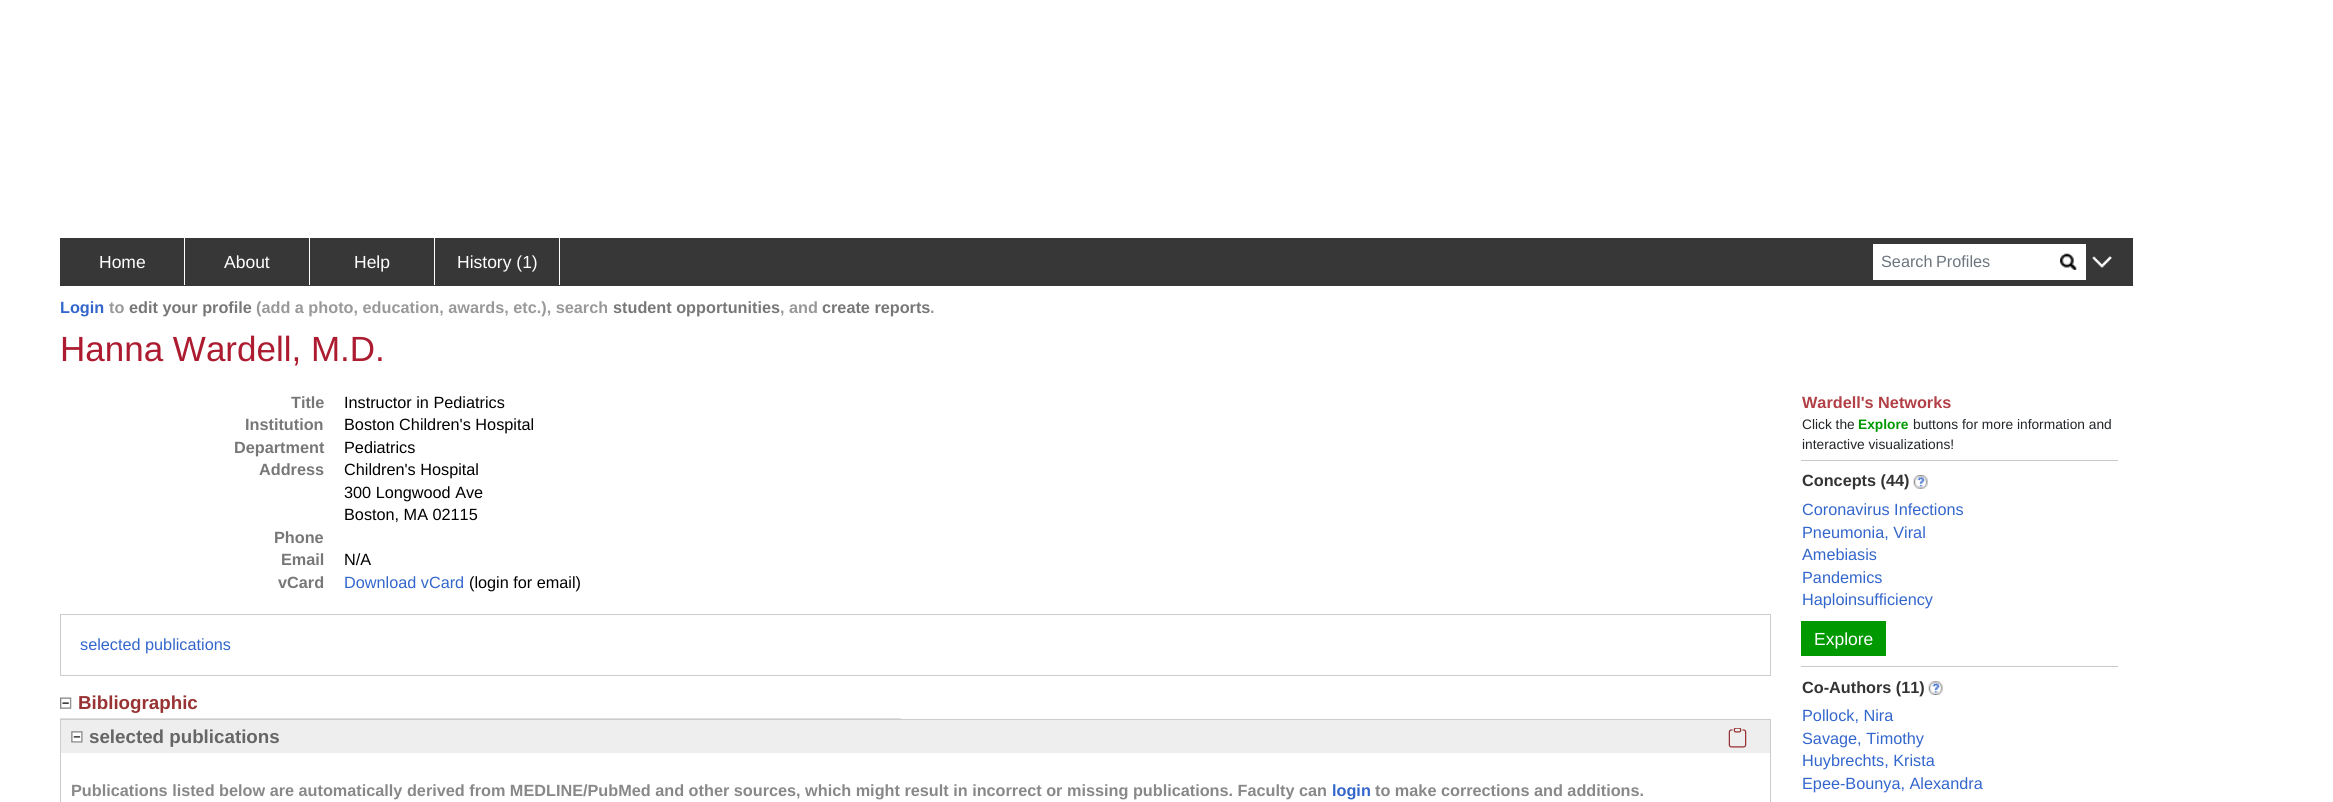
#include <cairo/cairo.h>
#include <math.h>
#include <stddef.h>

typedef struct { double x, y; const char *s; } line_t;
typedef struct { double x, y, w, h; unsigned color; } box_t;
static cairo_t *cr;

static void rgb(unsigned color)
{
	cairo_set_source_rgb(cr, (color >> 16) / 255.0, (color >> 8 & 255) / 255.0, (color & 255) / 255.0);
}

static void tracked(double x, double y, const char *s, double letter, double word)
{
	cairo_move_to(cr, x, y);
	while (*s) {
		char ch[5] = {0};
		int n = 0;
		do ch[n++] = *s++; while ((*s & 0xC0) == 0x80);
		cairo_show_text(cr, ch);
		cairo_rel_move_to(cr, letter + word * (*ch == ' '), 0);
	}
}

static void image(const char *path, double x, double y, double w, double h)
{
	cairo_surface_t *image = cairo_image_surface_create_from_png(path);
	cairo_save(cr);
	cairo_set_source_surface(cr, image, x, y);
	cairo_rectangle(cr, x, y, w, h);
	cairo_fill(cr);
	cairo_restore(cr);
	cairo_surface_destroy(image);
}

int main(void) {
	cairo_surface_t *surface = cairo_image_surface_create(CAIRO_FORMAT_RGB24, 2333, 802);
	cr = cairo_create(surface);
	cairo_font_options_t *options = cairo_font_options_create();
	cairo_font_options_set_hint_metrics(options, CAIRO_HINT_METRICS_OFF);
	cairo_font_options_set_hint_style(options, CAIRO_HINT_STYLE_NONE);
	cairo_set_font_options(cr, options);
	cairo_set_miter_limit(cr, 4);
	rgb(0xffffff);
	cairo_paint(cr);
	{
		static const box_t items[] = {
			{60, 238, 2073, 48, 0x383737},
			{184, 238, 1, 47, 0xffffff},
			{309, 238, 1, 47, 0xffffff},
			{434, 238, 1, 47, 0xffffff},
			{559, 238, 1, 47, 0xffffff},
			{1873, 244, 213, 36, 0xffffff},
		};
		for (size_t i = 0; i < sizeof items / sizeof *items; i++) {
			rgb(items[i].color);
			cairo_rectangle(cr, items[i].x, items[i].y, items[i].w, items[i].h);
			cairo_fill(cr);
		}
	}
	image("img/1.png", 2060, 253, 17, 17);
	image("img/2.png", 2092, 256, 20, 12);
	cairo_rectangle(cr, 60.5, 614.5, 1710, 61);
	rgb(0xcccccc);
	cairo_set_line_width(cr, 1);
	cairo_stroke(cr);
	rgb(0xdfdfdf);
	cairo_rectangle(cr, 60, 718, 841, 1);
	cairo_fill(cr);
	image("img/3.png", 60, 697, 12, 12);
	cairo_rectangle(cr, 60.5, 719.5, 1710, 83);
	rgb(0xcccccc);
	cairo_stroke(cr);
	rgb(0xeeeeee);
	cairo_rectangle(cr, 61, 720, 1709, 33);
	cairo_fill(cr);
	image("img/4.png", 71, 731, 12, 12);
	image("img/5.png", 1728, 728, 19, 20);
	rgb(0xc8c9ca);
	cairo_rectangle(cr, 1801, 460, 317, 1);
	cairo_fill(cr);
	image("img/6.png", 1913, 475, 15, 14);
	rgb(0x009900);
	cairo_rectangle(cr, 1801, 621, 85, 35);
	cairo_fill(cr);
	rgb(0xc8c9ca);
	cairo_rectangle(cr, 1801, 666, 317, 1);
	cairo_fill(cr);
	image("img/7.png", 1928, 681, 15, 14);
	cairo_select_font_face(cr, "Liberation Sans", CAIRO_FONT_SLANT_NORMAL, CAIRO_FONT_WEIGHT_NORMAL);
	cairo_set_font_size(cr, 17.5);
	rgb(0xffffff);
	{
		static const line_t items[] = {
			{99, 268, "Home"},
			{224, 268, "About"},
			{354, 268, "Help"},
			{457, 268, "History (1)"},
		};
		for (size_t i = 0; i < sizeof items / sizeof *items; i++) {
			cairo_move_to(cr, items[i].x, items[i].y);
			cairo_show_text(cr, items[i].s);
		}
	}
	cairo_set_font_size(cr, 16.25);
	rgb(0x6c757d);
	tracked(1881, 267, "Search Profiles", 0, -1);
	cairo_select_font_face(cr, "Liberation Sans", CAIRO_FONT_SLANT_NORMAL, CAIRO_FONT_WEIGHT_BOLD);
	rgb(0x3366cc);
	cairo_move_to(cr, 60, 313);
	cairo_show_text(cr, "Login");
	rgb(0x999999);
	cairo_move_to(cr, 109, 313);
	cairo_show_text(cr, "to");
	rgb(0x777777);
	cairo_move_to(cr, 129, 313);
	cairo_show_text(cr, "edit your profile");
	rgb(0x999999);
	cairo_move_to(cr, 256, 313);
	cairo_show_text(cr, "(add a photo, education, awards, etc.), search");
	rgb(0x777777);
	cairo_move_to(cr, 613, 313);
	cairo_show_text(cr, "student opportunities");
	rgb(0x999999);
	cairo_move_to(cr, 780, 313);
	cairo_show_text(cr, ", and");
	rgb(0x777777);
	cairo_move_to(cr, 822, 313);
	cairo_show_text(cr, "create reports");
	rgb(0x999999);
	cairo_move_to(cr, 930, 313);
	cairo_show_text(cr, ".");
	cairo_select_font_face(cr, "Liberation Sans", CAIRO_FONT_SLANT_NORMAL, CAIRO_FONT_WEIGHT_NORMAL);
	cairo_set_font_size(cr, 35);
	rgb(0xac1b30);
	cairo_move_to(cr, 60, 361);
	cairo_show_text(cr, "Hanna Wardell, M.D.");
	cairo_select_font_face(cr, "Liberation Sans", CAIRO_FONT_SLANT_NORMAL, CAIRO_FONT_WEIGHT_BOLD);
	cairo_set_font_size(cr, 16.25);
	rgb(0x777777);
	cairo_move_to(cr, 291, 408);
	cairo_show_text(cr, "Title");
	cairo_select_font_face(cr, "Liberation Sans", CAIRO_FONT_SLANT_NORMAL, CAIRO_FONT_WEIGHT_NORMAL);
	rgb(0x000000);
	cairo_move_to(cr, 344, 408);
	cairo_show_text(cr, "Instructor in Pediatrics");
	cairo_select_font_face(cr, "Liberation Sans", CAIRO_FONT_SLANT_NORMAL, CAIRO_FONT_WEIGHT_BOLD);
	rgb(0x777777);
	cairo_move_to(cr, 245, 430);
	cairo_show_text(cr, "Institution");
	cairo_select_font_face(cr, "Liberation Sans", CAIRO_FONT_SLANT_NORMAL, CAIRO_FONT_WEIGHT_NORMAL);
	rgb(0x000000);
	cairo_move_to(cr, 344, 430);
	cairo_show_text(cr, "Boston Children's Hospital");
	cairo_select_font_face(cr, "Liberation Sans", CAIRO_FONT_SLANT_NORMAL, CAIRO_FONT_WEIGHT_BOLD);
	rgb(0x777777);
	cairo_move_to(cr, 234, 453);
	cairo_show_text(cr, "Department");
	cairo_select_font_face(cr, "Liberation Sans", CAIRO_FONT_SLANT_NORMAL, CAIRO_FONT_WEIGHT_NORMAL);
	rgb(0x000000);
	cairo_move_to(cr, 344, 453);
	cairo_show_text(cr, "Pediatrics");
	cairo_select_font_face(cr, "Liberation Sans", CAIRO_FONT_SLANT_NORMAL, CAIRO_FONT_WEIGHT_BOLD);
	rgb(0x777777);
	cairo_move_to(cr, 259, 475);
	cairo_show_text(cr, "Address");
	cairo_select_font_face(cr, "Liberation Sans", CAIRO_FONT_SLANT_NORMAL, CAIRO_FONT_WEIGHT_NORMAL);
	rgb(0x000000);
	{
		static const line_t items[] = {
			{344, 475, "Children's Hospital"},
			{344, 498, "300 Longwood Ave"},
			{344, 520, "Boston, MA 02115"},
		};
		for (size_t i = 0; i < sizeof items / sizeof *items; i++) {
			cairo_move_to(cr, items[i].x, items[i].y);
			cairo_show_text(cr, items[i].s);
		}
	}
	cairo_select_font_face(cr, "Liberation Sans", CAIRO_FONT_SLANT_NORMAL, CAIRO_FONT_WEIGHT_BOLD);
	rgb(0x777777);
	cairo_move_to(cr, 274, 543);
	cairo_show_text(cr, "Phone");
	cairo_move_to(cr, 281, 565);
	cairo_show_text(cr, "Email");
	cairo_select_font_face(cr, "Liberation Sans", CAIRO_FONT_SLANT_NORMAL, CAIRO_FONT_WEIGHT_NORMAL);
	rgb(0x000000);
	cairo_move_to(cr, 344, 565);
	cairo_show_text(cr, "N/A");
	cairo_select_font_face(cr, "Liberation Sans", CAIRO_FONT_SLANT_NORMAL, CAIRO_FONT_WEIGHT_BOLD);
	rgb(0x777777);
	cairo_move_to(cr, 278, 588);
	cairo_show_text(cr, "vCard");
	cairo_select_font_face(cr, "Liberation Sans", CAIRO_FONT_SLANT_NORMAL, CAIRO_FONT_WEIGHT_NORMAL);
	rgb(0x3366cc);
	cairo_move_to(cr, 344, 588);
	cairo_show_text(cr, "Download vCard");
	rgb(0x000000);
	cairo_move_to(cr, 469, 588);
	cairo_show_text(cr, "(login for email)");
	rgb(0x3366cc);
	cairo_move_to(cr, 80, 650);
	cairo_show_text(cr, "selected publications");
	cairo_select_font_face(cr, "Liberation Sans", CAIRO_FONT_SLANT_NORMAL, CAIRO_FONT_WEIGHT_BOLD);
	cairo_set_font_size(cr, 18.75);
	rgb(0x993333);
	cairo_move_to(cr, 78, 709);
	cairo_show_text(cr, "Bibliographic");
	rgb(0x666666);
	cairo_move_to(cr, 89, 743);
	cairo_show_text(cr, "selected publications");
	cairo_set_font_size(cr, 16.25);
	rgb(0x888888);
	cairo_move_to(cr, 71, 796);
	cairo_show_text(cr, "Publications listed below are automatically derived from MEDLINE/PubMed and other sources, which might result in incorrect or missing publications. Faculty can");
	rgb(0x3366cc);
	cairo_move_to(cr, 1332, 796);
	cairo_show_text(cr, "login");
	rgb(0x888888);
	cairo_move_to(cr, 1375, 796);
	cairo_show_text(cr, "to make corrections and additions.");
	rgb(0xb23f45);
	cairo_move_to(cr, 1802, 408);
	cairo_show_text(cr, "Wardell's Networks");
	cairo_select_font_face(cr, "Liberation Sans", CAIRO_FONT_SLANT_NORMAL, CAIRO_FONT_WEIGHT_NORMAL);
	cairo_set_font_size(cr, 13.75);
	rgb(0x212529);
	cairo_move_to(cr, 1802, 429);
	cairo_show_text(cr, "Click the");
	cairo_select_font_face(cr, "Liberation Sans", CAIRO_FONT_SLANT_NORMAL, CAIRO_FONT_WEIGHT_BOLD);
	rgb(0x009900);
	cairo_move_to(cr, 1858, 429);
	cairo_show_text(cr, "Explore");
	cairo_select_font_face(cr, "Liberation Sans", CAIRO_FONT_SLANT_NORMAL, CAIRO_FONT_WEIGHT_NORMAL);
	rgb(0x212529);
	cairo_move_to(cr, 1913, 429);
	cairo_show_text(cr, "buttons for more information and");
	cairo_move_to(cr, 1802, 449);
	cairo_show_text(cr, "interactive visualizations!");
	cairo_select_font_face(cr, "Liberation Sans", CAIRO_FONT_SLANT_NORMAL, CAIRO_FONT_WEIGHT_BOLD);
	cairo_set_font_size(cr, 16.25);
	rgb(0x333333);
	cairo_move_to(cr, 1802, 486);
	cairo_show_text(cr, "Concepts (44)");
	cairo_select_font_face(cr, "Liberation Sans", CAIRO_FONT_SLANT_NORMAL, CAIRO_FONT_WEIGHT_NORMAL);
	rgb(0x3366cc);
	{
		static const line_t items[] = {
			{1802, 515, "Coronavirus Infections"},
			{1802, 538, "Pneumonia, Viral"},
			{1802, 560, "Amebiasis"},
			{1802, 583, "Pandemics"},
			{1802, 605, "Haploinsufficiency"},
		};
		for (size_t i = 0; i < sizeof items / sizeof *items; i++) {
			cairo_move_to(cr, items[i].x, items[i].y);
			cairo_show_text(cr, items[i].s);
		}
	}
	cairo_set_font_size(cr, 17.5);
	rgb(0xffffff);
	cairo_move_to(cr, 1814, 645);
	cairo_show_text(cr, "Explore");
	cairo_select_font_face(cr, "Liberation Sans", CAIRO_FONT_SLANT_NORMAL, CAIRO_FONT_WEIGHT_BOLD);
	cairo_set_font_size(cr, 16.25);
	rgb(0x333333);
	cairo_move_to(cr, 1802, 693);
	cairo_show_text(cr, "Co-Authors (11)");
	cairo_select_font_face(cr, "Liberation Sans", CAIRO_FONT_SLANT_NORMAL, CAIRO_FONT_WEIGHT_NORMAL);
	rgb(0x3366cc);
	{
		static const line_t items[] = {
			{1802, 721, "Pollock, Nira"},
			{1802, 744, "Savage, Timothy"},
			{1802, 766, "Huybrechts, Krista"},
			{1802, 789, "Epee-Bounya, Alexandra"},
		};
		for (size_t i = 0; i < sizeof items / sizeof *items; i++) {
			cairo_move_to(cr, items[i].x, items[i].y);
			cairo_show_text(cr, items[i].s);
		}
	}
	cairo_surface_write_to_png(surface, "page.png");
	cairo_font_options_destroy(options);
	cairo_destroy(cr);
	cairo_surface_destroy(surface);
	return 0;
}
